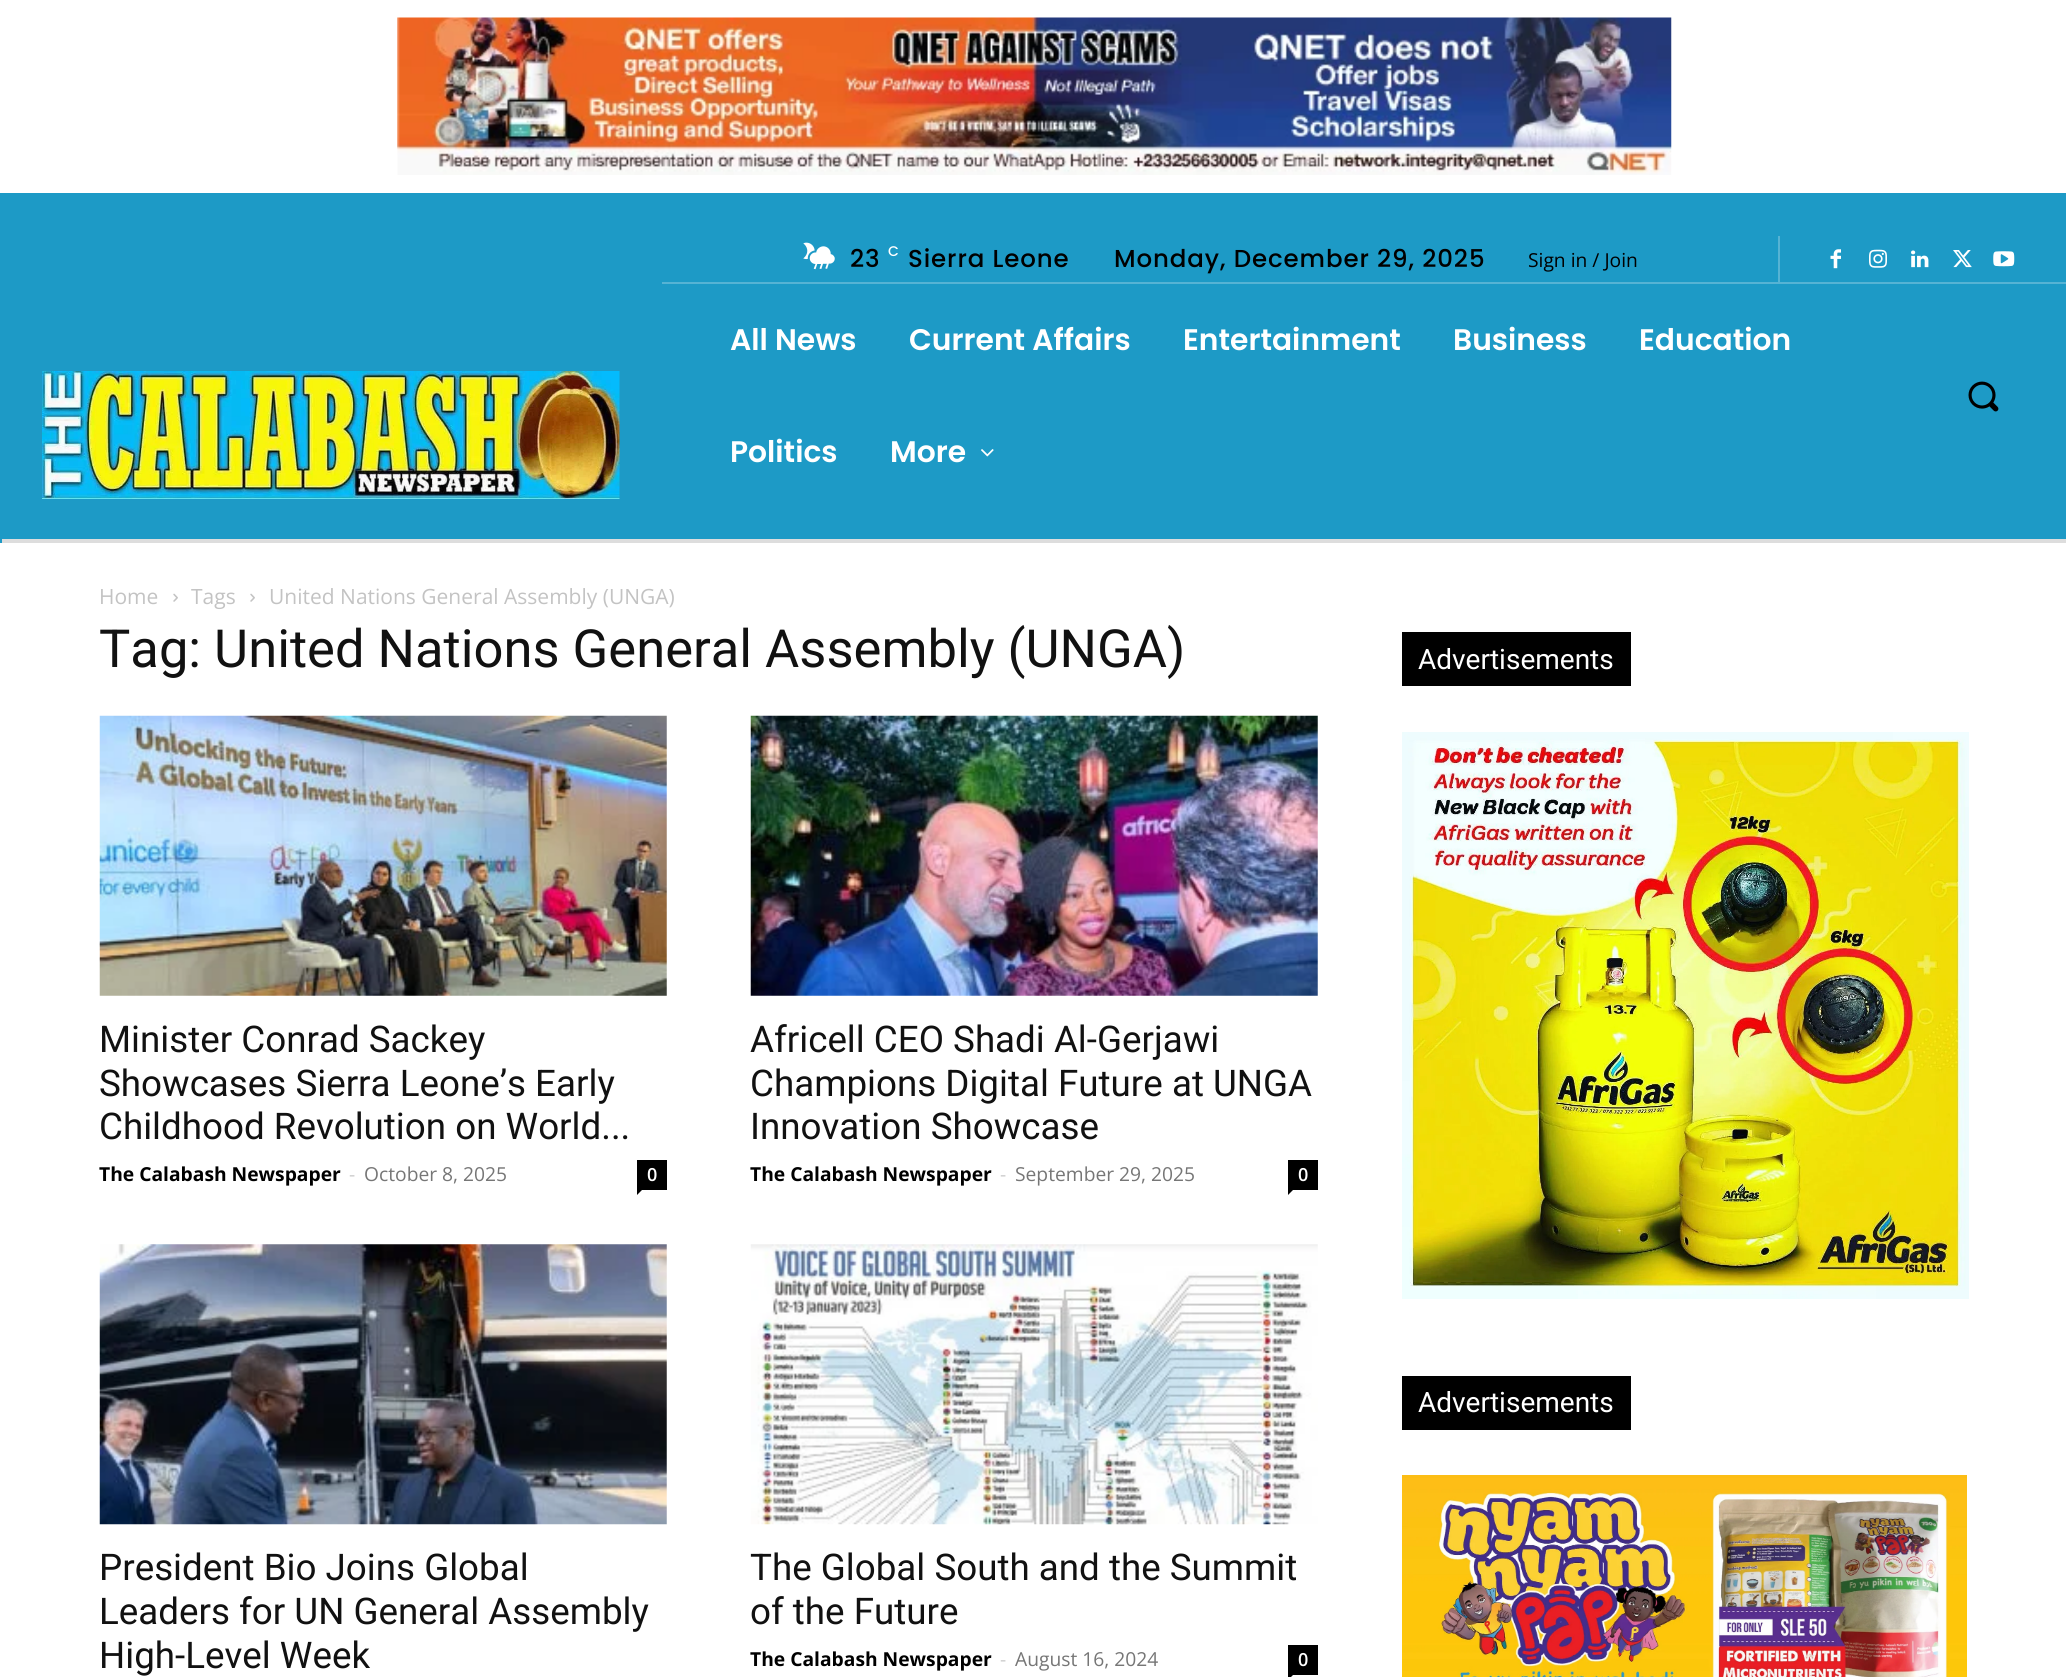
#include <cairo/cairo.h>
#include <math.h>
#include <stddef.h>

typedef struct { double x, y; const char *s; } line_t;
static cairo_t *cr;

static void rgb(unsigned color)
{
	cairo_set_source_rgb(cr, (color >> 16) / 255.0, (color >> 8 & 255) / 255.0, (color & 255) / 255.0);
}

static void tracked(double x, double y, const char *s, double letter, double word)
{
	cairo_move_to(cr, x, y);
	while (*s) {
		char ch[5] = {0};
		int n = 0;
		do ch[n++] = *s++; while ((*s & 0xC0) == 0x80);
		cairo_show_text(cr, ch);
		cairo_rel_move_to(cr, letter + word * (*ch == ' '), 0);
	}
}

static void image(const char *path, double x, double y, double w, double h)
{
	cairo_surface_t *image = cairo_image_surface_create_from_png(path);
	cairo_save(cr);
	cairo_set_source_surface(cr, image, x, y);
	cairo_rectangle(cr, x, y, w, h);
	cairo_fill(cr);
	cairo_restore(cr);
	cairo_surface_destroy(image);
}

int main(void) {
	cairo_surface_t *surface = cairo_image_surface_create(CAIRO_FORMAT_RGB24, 2066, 1677);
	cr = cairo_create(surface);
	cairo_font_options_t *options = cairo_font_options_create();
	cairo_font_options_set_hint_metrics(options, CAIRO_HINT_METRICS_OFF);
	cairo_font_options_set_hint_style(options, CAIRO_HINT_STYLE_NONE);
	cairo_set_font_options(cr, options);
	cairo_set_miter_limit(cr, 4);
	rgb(0xffffff);
	cairo_paint(cr);
	image("img/1.png", 397, 17, 1275, 158);
	rgb(0x1d9ac6);
	cairo_rectangle(cr, 0, 193, 2066, 350);
	cairo_fill(cr);
	image("img/2.png", 42, 371, 578, 128);
	image("img/3.png", 803, 242, 32, 28);
	rgb(0x56b3d4);
	cairo_rectangle(cr, 1778, 236, 2, 46);
	cairo_fill(cr);
	image("img/4.png", 1830, 249, 11, 20);
	image("img/5.png", 1869, 249, 18, 19);
	image("img/6.png", 1911, 250, 18, 18);
	image("img/7.png", 1953, 250, 19, 18);
	image("img/8.png", 1993, 251, 22, 16);
	cairo_rectangle(cr, 662, 282, 1404, 2);
	cairo_fill(cr);
	image("img/9.png", 981, 449, 13, 8);
	image("img/10.png", 1968, 381, 31, 31);
	rgb(0xdddddd);
	cairo_rectangle(cr, 2, 539, 2064, 4);
	cairo_fill(cr);
	image("img/11.png", 173, 593, 5, 9);
	image("img/11.png", 250, 593, 5, 9);
	image("img/12.png", 99, 715, 568, 281);
	rgb(0x000000);
	cairo_rectangle(cr, 637, 1160, 30, 30);
	cairo_fill(cr);
	cairo_new_path(cr);
	cairo_move_to(cr, 637, 1190);
	cairo_line_to(cr, 642, 1190);
	cairo_line_to(cr, 637, 1195);
	cairo_close_path(cr);
	cairo_fill(cr);
	image("img/13.png", 750, 715, 568, 281);
	cairo_rectangle(cr, 1288, 1160, 30, 30);
	cairo_fill(cr);
	cairo_new_path(cr);
	cairo_move_to(cr, 1288, 1190);
	cairo_line_to(cr, 1293, 1190);
	cairo_line_to(cr, 1288, 1195);
	cairo_close_path(cr);
	cairo_fill(cr);
	image("img/14.png", 99, 1244, 568, 281);
	image("img/15.png", 750, 1244, 568, 281);
	cairo_rectangle(cr, 1288, 1645, 30, 30);
	cairo_fill(cr);
	cairo_new_path(cr);
	cairo_move_to(cr, 1288, 1675);
	cairo_line_to(cr, 1293, 1675);
	cairo_line_to(cr, 1288, 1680);
	cairo_close_path(cr);
	cairo_fill(cr);
	cairo_rectangle(cr, 1402, 632, 229, 54);
	cairo_fill(cr);
	image("img/16.png", 1402, 732, 567, 567);
	cairo_rectangle(cr, 1402, 1376, 229, 54);
	cairo_fill(cr);
	image("img/17.png", 1402, 1475, 565, 202);
	cairo_select_font_face(cr, "Poppins Medium", CAIRO_FONT_SLANT_NORMAL, CAIRO_FONT_WEIGHT_NORMAL);
	cairo_set_font_size(cr, 24.5);
	tracked(850, 267, "23", 0.9, 0);
	cairo_set_font_size(cr, 14);
	rgb(0xffffff);
	tracked(888, 256, "C", 0.9, 0);
	cairo_set_font_size(cr, 24.5);
	rgb(0x000000);
	tracked(908, 267, "Sierra Leone", 0.9, 0);
	tracked(1114, 267, "Monday, December 29, 2025", 0.9, 0);
	cairo_select_font_face(cr, "Open Sans", CAIRO_FONT_SLANT_NORMAL, CAIRO_FONT_WEIGHT_NORMAL);
	cairo_set_font_size(cr, 19.25);
	cairo_move_to(cr, 1528, 267);
	cairo_show_text(cr, "Sign in / Join");
	cairo_select_font_face(cr, "Poppins SemiBold", CAIRO_FONT_SLANT_NORMAL, CAIRO_FONT_WEIGHT_NORMAL);
	cairo_set_font_size(cr, 29.75);
	rgb(0xffffff);
	{
		static const line_t items[] = {
			{730, 350, "All News"},
			{909, 350, "Current Affairs"},
			{1183, 350, "Entertainment"},
			{1453, 350, "Business"},
			{1639, 350, "Education"},
			{730, 462, "Politics"},
			{890, 462, "More"},
		};
		for (size_t i = 0; i < sizeof items / sizeof *items; i++) {
			cairo_move_to(cr, items[i].x, items[i].y);
			cairo_show_text(cr, items[i].s);
		}
	}
	cairo_select_font_face(cr, "Open Sans", CAIRO_FONT_SLANT_NORMAL, CAIRO_FONT_WEIGHT_NORMAL);
	cairo_set_font_size(cr, 21);
	rgb(0xc3c3c3);
	{
		static const line_t items[] = {
			{99, 604, "Home"},
			{191, 604, "Tags"},
			{269, 604, "United Nations General Assembly (UNGA)"},
		};
		for (size_t i = 0; i < sizeof items / sizeof *items; i++) {
			cairo_move_to(cr, items[i].x, items[i].y);
			cairo_show_text(cr, items[i].s);
		}
	}
	cairo_select_font_face(cr, "Roboto", CAIRO_FONT_SLANT_NORMAL, CAIRO_FONT_WEIGHT_NORMAL);
	cairo_set_font_size(cr, 52.5);
	rgb(0x111111);
	cairo_move_to(cr, 99, 667);
	cairo_show_text(cr, "Tag: United Nations General Assembly (UNGA)");
	cairo_set_font_size(cr, 36.75);
	{
		static const line_t items[] = {
			{99, 1052, "Minister Conrad Sackey"},
			{99, 1096, "Showcases Sierra Leone’s Early"},
			{99, 1139, "Childhood Revolution on World..."},
		};
		for (size_t i = 0; i < sizeof items / sizeof *items; i++) {
			cairo_move_to(cr, items[i].x, items[i].y);
			cairo_show_text(cr, items[i].s);
		}
	}
	cairo_select_font_face(cr, "Open Sans", CAIRO_FONT_SLANT_NORMAL, CAIRO_FONT_WEIGHT_BOLD);
	cairo_set_font_size(cr, 19.25);
	rgb(0x000000);
	cairo_move_to(cr, 99, 1181);
	cairo_show_text(cr, "The Calabash Newspaper");
	cairo_select_font_face(cr, "Open Sans", CAIRO_FONT_SLANT_NORMAL, CAIRO_FONT_WEIGHT_NORMAL);
	rgb(0xcccccc);
	cairo_move_to(cr, 349, 1181);
	cairo_show_text(cr, "-");
	rgb(0x767676);
	cairo_move_to(cr, 364, 1181);
	cairo_show_text(cr, "October 8, 2025");
	cairo_select_font_face(cr, "Open Sans SemiBold", CAIRO_FONT_SLANT_NORMAL, CAIRO_FONT_WEIGHT_NORMAL);
	cairo_set_font_size(cr, 18);
	rgb(0xffffff);
	cairo_move_to(cr, 647, 1181);
	cairo_show_text(cr, "0");
	cairo_select_font_face(cr, "Roboto", CAIRO_FONT_SLANT_NORMAL, CAIRO_FONT_WEIGHT_NORMAL);
	cairo_set_font_size(cr, 36.75);
	rgb(0x111111);
	{
		static const line_t items[] = {
			{750, 1052, "Africell CEO Shadi Al-Gerjawi"},
			{750, 1096, "Champions Digital Future at UNGA"},
			{750, 1139, "Innovation Showcase"},
		};
		for (size_t i = 0; i < sizeof items / sizeof *items; i++) {
			cairo_move_to(cr, items[i].x, items[i].y);
			cairo_show_text(cr, items[i].s);
		}
	}
	cairo_select_font_face(cr, "Open Sans", CAIRO_FONT_SLANT_NORMAL, CAIRO_FONT_WEIGHT_BOLD);
	cairo_set_font_size(cr, 19.25);
	rgb(0x000000);
	cairo_move_to(cr, 750, 1181);
	cairo_show_text(cr, "The Calabash Newspaper");
	cairo_select_font_face(cr, "Open Sans", CAIRO_FONT_SLANT_NORMAL, CAIRO_FONT_WEIGHT_NORMAL);
	rgb(0xcccccc);
	cairo_move_to(cr, 1000, 1181);
	cairo_show_text(cr, "-");
	rgb(0x767676);
	cairo_move_to(cr, 1015, 1181);
	cairo_show_text(cr, "September 29, 2025");
	cairo_select_font_face(cr, "Open Sans SemiBold", CAIRO_FONT_SLANT_NORMAL, CAIRO_FONT_WEIGHT_NORMAL);
	cairo_set_font_size(cr, 18);
	rgb(0xffffff);
	cairo_move_to(cr, 1298, 1181);
	cairo_show_text(cr, "0");
	cairo_select_font_face(cr, "Roboto", CAIRO_FONT_SLANT_NORMAL, CAIRO_FONT_WEIGHT_NORMAL);
	cairo_set_font_size(cr, 36.75);
	rgb(0x111111);
	{
		static const line_t items[] = {
			{99, 1580, "President Bio Joins Global"},
			{99, 1624, "Leaders for UN General Assembly"},
			{99, 1668, "High-Level Week"},
			{750, 1580, "The Global South and the Summit"},
			{750, 1624, "of the Future"},
		};
		for (size_t i = 0; i < sizeof items / sizeof *items; i++) {
			cairo_move_to(cr, items[i].x, items[i].y);
			cairo_show_text(cr, items[i].s);
		}
	}
	cairo_select_font_face(cr, "Open Sans", CAIRO_FONT_SLANT_NORMAL, CAIRO_FONT_WEIGHT_BOLD);
	cairo_set_font_size(cr, 19.25);
	rgb(0x000000);
	cairo_move_to(cr, 750, 1666);
	cairo_show_text(cr, "The Calabash Newspaper");
	cairo_select_font_face(cr, "Open Sans", CAIRO_FONT_SLANT_NORMAL, CAIRO_FONT_WEIGHT_NORMAL);
	rgb(0xcccccc);
	cairo_move_to(cr, 1000, 1666);
	cairo_show_text(cr, "-");
	rgb(0x767676);
	cairo_move_to(cr, 1015, 1666);
	cairo_show_text(cr, "August 16, 2024");
	cairo_select_font_face(cr, "Open Sans SemiBold", CAIRO_FONT_SLANT_NORMAL, CAIRO_FONT_WEIGHT_NORMAL);
	cairo_set_font_size(cr, 18);
	rgb(0xffffff);
	cairo_move_to(cr, 1298, 1666);
	cairo_show_text(cr, "0");
	cairo_select_font_face(cr, "Roboto", CAIRO_FONT_SLANT_NORMAL, CAIRO_FONT_WEIGHT_NORMAL);
	cairo_set_font_size(cr, 28);
	cairo_move_to(cr, 1418, 669);
	cairo_show_text(cr, "Advertisements");
	cairo_move_to(cr, 1418, 1412);
	cairo_show_text(cr, "Advertisements");
	cairo_surface_write_to_png(surface, "page.png");
	cairo_font_options_destroy(options);
	cairo_destroy(cr);
	cairo_surface_destroy(surface);
	return 0;
}
